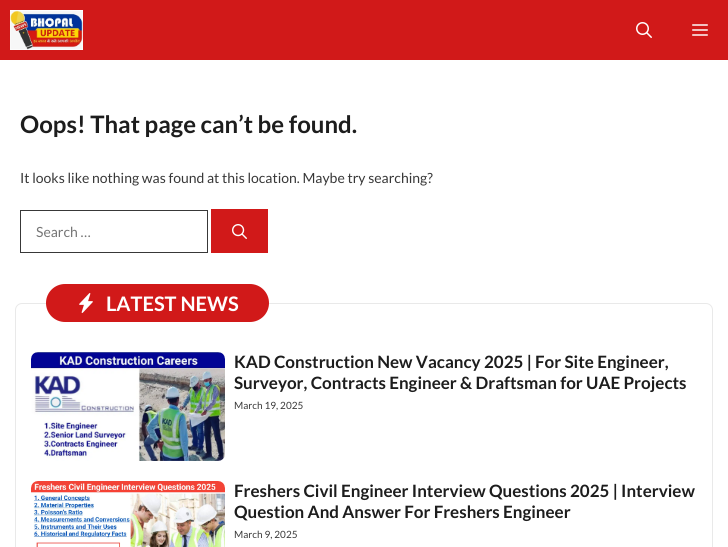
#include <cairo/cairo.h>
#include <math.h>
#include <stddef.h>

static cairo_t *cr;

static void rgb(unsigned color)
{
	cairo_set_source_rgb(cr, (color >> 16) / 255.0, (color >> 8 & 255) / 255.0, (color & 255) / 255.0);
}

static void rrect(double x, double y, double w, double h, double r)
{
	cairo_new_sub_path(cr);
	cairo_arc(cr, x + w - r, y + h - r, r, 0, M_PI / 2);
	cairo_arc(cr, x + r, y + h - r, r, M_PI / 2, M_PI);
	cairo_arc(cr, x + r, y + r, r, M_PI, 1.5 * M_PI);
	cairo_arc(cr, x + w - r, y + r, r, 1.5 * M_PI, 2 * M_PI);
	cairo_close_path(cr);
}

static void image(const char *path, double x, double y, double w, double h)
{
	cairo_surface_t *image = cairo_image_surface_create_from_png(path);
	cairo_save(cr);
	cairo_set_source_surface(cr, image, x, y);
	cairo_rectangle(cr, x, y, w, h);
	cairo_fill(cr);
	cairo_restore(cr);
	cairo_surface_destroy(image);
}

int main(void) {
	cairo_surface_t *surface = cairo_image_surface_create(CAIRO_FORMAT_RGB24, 728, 547);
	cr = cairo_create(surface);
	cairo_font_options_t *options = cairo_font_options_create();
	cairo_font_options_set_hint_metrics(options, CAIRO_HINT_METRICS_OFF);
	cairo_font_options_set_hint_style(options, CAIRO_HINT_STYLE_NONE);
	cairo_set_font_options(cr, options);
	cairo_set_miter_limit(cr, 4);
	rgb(0xffffff);
	cairo_paint(cr);
	rgb(0xd11919);
	cairo_rectangle(cr, 0, 0, 728, 60);
	cairo_fill(cr);
	image("img/1.png", 10, 10, 73, 40);
	image("img/2.png", 636, 22, 16, 16);
	image("img/3.png", 692, 24, 16, 12);
	cairo_rectangle(cr, 20.5, 210.5, 187, 42);
	rgb(0x383838);
	cairo_set_line_width(cr, 1);
	cairo_stroke(cr);
	rgb(0xd11919);
	cairo_rectangle(cr, 211, 209, 57, 44);
	cairo_fill(cr);
	image("img/4.png", 232, 224, 15, 15);
	rrect(15.5, 303.5, 697, 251, 6.5);
	rgb(0xe9e9e9);
	cairo_stroke(cr);
	rgb(0xd11919);
	rrect(46, 284, 223, 38, 19);
	cairo_fill(cr);
	image("img/5.png", 79, 293, 14, 20);
	image("img/6.png", 31, 352, 194, 109);
	image("img/7.png", 31, 481, 194, 66);
	cairo_select_font_face(cr, "Lato", CAIRO_FONT_SLANT_NORMAL, CAIRO_FONT_WEIGHT_BOLD);
	cairo_set_font_size(cr, 24);
	rgb(0x1d1d1d);
	cairo_move_to(cr, 20, 133);
	cairo_show_text(cr, "Oops! That page can’t be found.");
	cairo_select_font_face(cr, "Lato", CAIRO_FONT_SLANT_NORMAL, CAIRO_FONT_WEIGHT_NORMAL);
	cairo_set_font_size(cr, 14);
	rgb(0x383838);
	cairo_move_to(cr, 20, 183);
	cairo_show_text(cr, "It looks like nothing was found at this location. Maybe try searching?");
	rgb(0x757575);
	cairo_move_to(cr, 36, 237);
	cairo_show_text(cr, "Search …");
	cairo_select_font_face(cr, "Lato", CAIRO_FONT_SLANT_NORMAL, CAIRO_FONT_WEIGHT_BOLD);
	cairo_set_font_size(cr, 20);
	rgb(0xffffff);
	cairo_move_to(cr, 106, 311);
	cairo_show_text(cr, "LATEST NEWS");
	cairo_set_font_size(cr, 17);
	rgb(0x1d1d1d);
	cairo_move_to(cr, 234, 368);
	cairo_show_text(cr, "KAD Construction New Vacancy 2025 | For Site Engineer,");
	cairo_move_to(cr, 234, 389);
	cairo_show_text(cr, "Surveyor, Contracts Engineer & Draftsman for UAE Projects");
	cairo_select_font_face(cr, "Lato", CAIRO_FONT_SLANT_NORMAL, CAIRO_FONT_WEIGHT_NORMAL);
	cairo_set_font_size(cr, 10);
	rgb(0x383838);
	cairo_move_to(cr, 234, 409);
	cairo_show_text(cr, "March 19, 2025");
	cairo_select_font_face(cr, "Lato", CAIRO_FONT_SLANT_NORMAL, CAIRO_FONT_WEIGHT_BOLD);
	cairo_set_font_size(cr, 17);
	rgb(0x1d1d1d);
	cairo_move_to(cr, 234, 497);
	cairo_show_text(cr, "Freshers Civil Engineer Interview Questions 2025 | Interview");
	cairo_move_to(cr, 234, 518);
	cairo_show_text(cr, "Question And Answer For Freshers Engineer");
	cairo_select_font_face(cr, "Lato", CAIRO_FONT_SLANT_NORMAL, CAIRO_FONT_WEIGHT_NORMAL);
	cairo_set_font_size(cr, 10);
	rgb(0x383838);
	cairo_move_to(cr, 234, 538);
	cairo_show_text(cr, "March 9, 2025");
	cairo_surface_write_to_png(surface, "page.png");
	cairo_font_options_destroy(options);
	cairo_destroy(cr);
	cairo_surface_destroy(surface);
	return 0;
}
